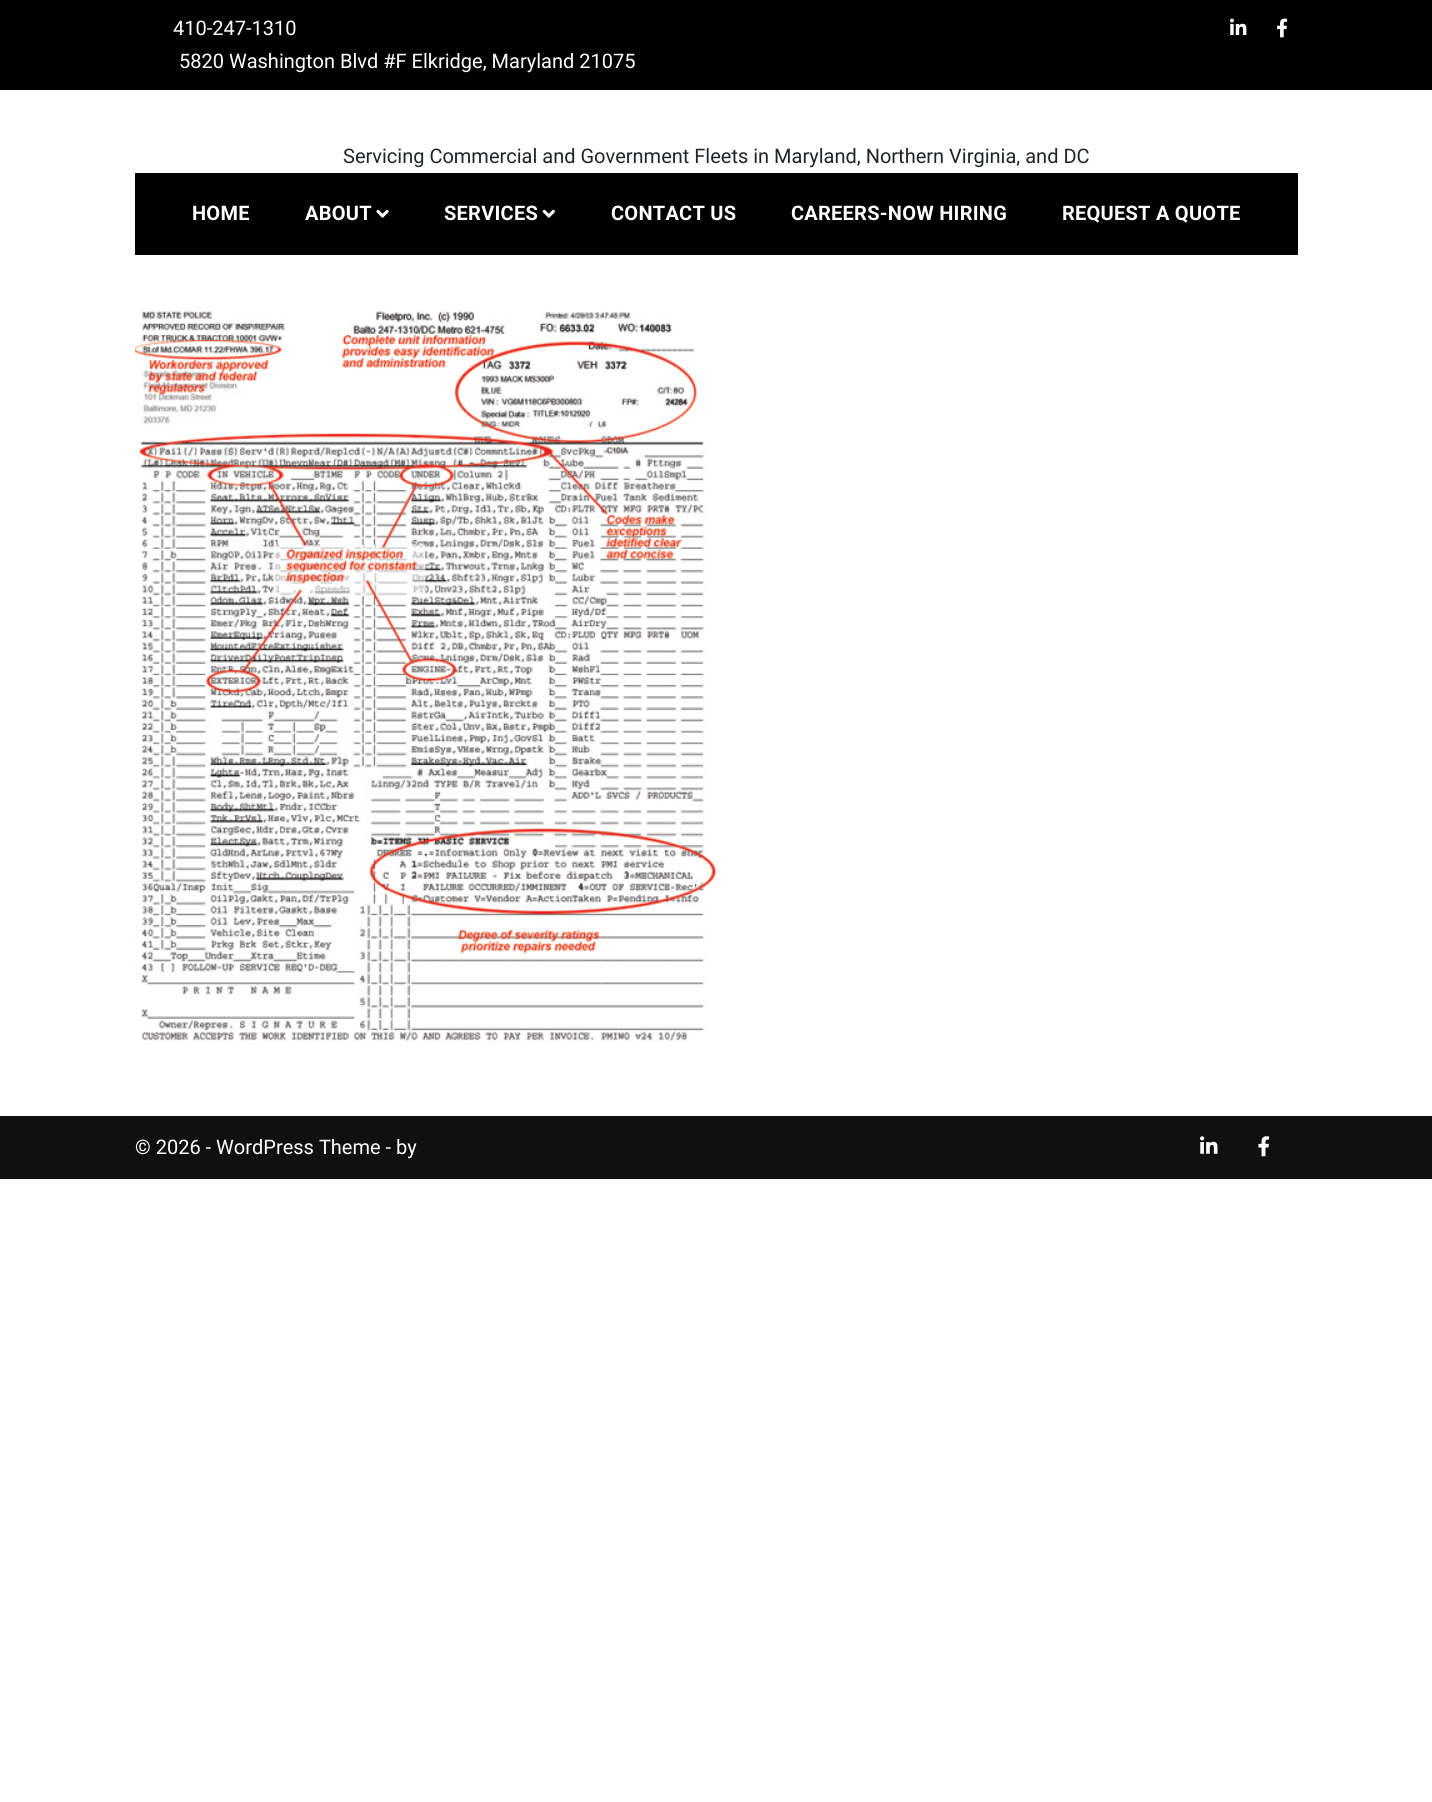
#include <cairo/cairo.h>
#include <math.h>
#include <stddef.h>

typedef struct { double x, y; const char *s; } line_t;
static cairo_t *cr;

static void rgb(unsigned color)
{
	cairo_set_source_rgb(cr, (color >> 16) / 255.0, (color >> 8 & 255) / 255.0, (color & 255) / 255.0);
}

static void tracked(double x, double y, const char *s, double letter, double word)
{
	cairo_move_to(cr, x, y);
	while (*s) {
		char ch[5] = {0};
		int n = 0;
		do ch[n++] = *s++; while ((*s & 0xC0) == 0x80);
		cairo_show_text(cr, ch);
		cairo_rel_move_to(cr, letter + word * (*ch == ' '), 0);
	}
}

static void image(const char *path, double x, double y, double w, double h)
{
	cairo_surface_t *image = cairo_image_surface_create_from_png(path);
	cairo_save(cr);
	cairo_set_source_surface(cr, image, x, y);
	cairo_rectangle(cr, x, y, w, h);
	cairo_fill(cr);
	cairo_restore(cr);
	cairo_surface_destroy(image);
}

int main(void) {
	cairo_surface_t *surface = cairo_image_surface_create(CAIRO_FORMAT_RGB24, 1432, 1802);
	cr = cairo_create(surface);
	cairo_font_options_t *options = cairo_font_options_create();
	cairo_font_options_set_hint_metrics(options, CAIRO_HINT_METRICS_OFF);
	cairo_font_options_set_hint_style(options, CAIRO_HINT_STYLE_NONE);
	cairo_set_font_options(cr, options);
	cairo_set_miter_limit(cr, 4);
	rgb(0xffffff);
	cairo_paint(cr);
	rgb(0x000000);
	cairo_rectangle(cr, 0, 0, 1432, 90);
	cairo_fill(cr);
	image("img/1.png", 1230, 18, 17, 17);
	image("img/2.png", 1277, 18, 11, 20);
	cairo_rectangle(cr, 135, 173, 1163, 82);
	cairo_fill(cr);
	image("img/3.png", 376, 209, 13, 9);
	image("img/4.png", 542, 209, 13, 9);
	image("img/5.png", 135, 311, 582, 731);
	rgb(0x101010);
	cairo_rectangle(cr, 0, 1116, 1432, 63);
	cairo_fill(cr);
	image("img/6.png", 1200, 1136, 18, 18);
	image("img/7.png", 1258, 1136, 12, 21);
	cairo_select_font_face(cr, "Roboto", CAIRO_FONT_SLANT_NORMAL, CAIRO_FONT_WEIGHT_NORMAL);
	cairo_set_font_size(cr, 20);
	rgb(0xffffff);
	cairo_move_to(cr, 173, 35);
	cairo_show_text(cr, "410-247-1310");
	cairo_move_to(cr, 179, 68);
	cairo_show_text(cr, "5820 Washington Blvd #F Elkridge, Maryland 21075");
	rgb(0x212529);
	cairo_move_to(cr, 343, 163);
	cairo_show_text(cr, "Servicing Commercial and Government Fleets in Maryland, Northern Virginia, and DC");
	cairo_select_font_face(cr, "Roboto", CAIRO_FONT_SLANT_NORMAL, CAIRO_FONT_WEIGHT_BOLD);
	rgb(0xffffff);
	{
		static const line_t items[] = {
			{192, 220, "HOME"},
			{305, 220, "ABOUT"},
			{444, 220, "SERVICES"},
			{611, 220, "CONTACT US"},
			{791, 220, "CAREERS-NOW HIRING"},
			{1062, 220, "REQUEST A QUOTE"},
		};
		for (size_t i = 0; i < sizeof items / sizeof *items; i++) {
			tracked(items[i].x, items[i].y, items[i].s, 0.25, 0);
		}
	}
	cairo_select_font_face(cr, "Roboto", CAIRO_FONT_SLANT_NORMAL, CAIRO_FONT_WEIGHT_NORMAL);
	cairo_move_to(cr, 135, 1154);
	cairo_show_text(cr, "© 2026 - WordPress Theme - by");
	cairo_surface_write_to_png(surface, "page.png");
	cairo_font_options_destroy(options);
	cairo_destroy(cr);
	cairo_surface_destroy(surface);
	return 0;
}
